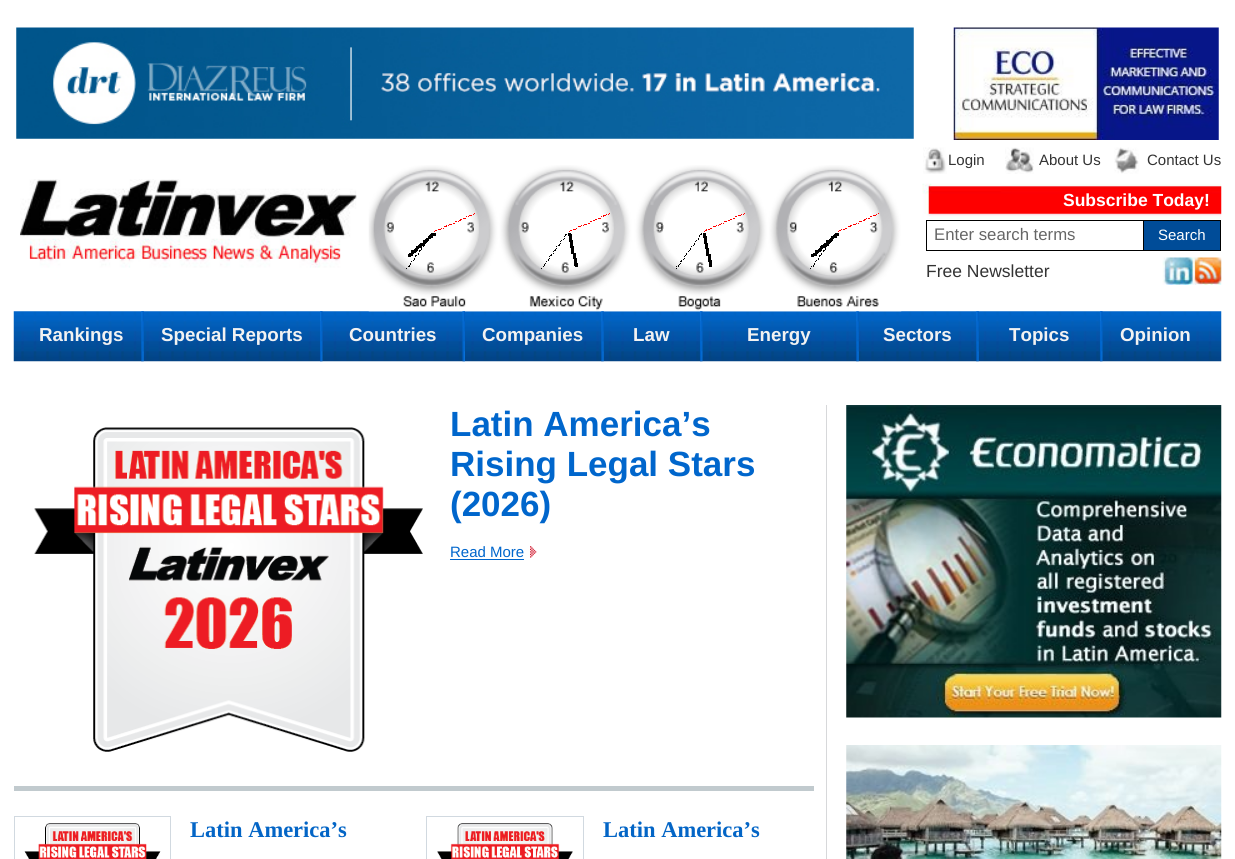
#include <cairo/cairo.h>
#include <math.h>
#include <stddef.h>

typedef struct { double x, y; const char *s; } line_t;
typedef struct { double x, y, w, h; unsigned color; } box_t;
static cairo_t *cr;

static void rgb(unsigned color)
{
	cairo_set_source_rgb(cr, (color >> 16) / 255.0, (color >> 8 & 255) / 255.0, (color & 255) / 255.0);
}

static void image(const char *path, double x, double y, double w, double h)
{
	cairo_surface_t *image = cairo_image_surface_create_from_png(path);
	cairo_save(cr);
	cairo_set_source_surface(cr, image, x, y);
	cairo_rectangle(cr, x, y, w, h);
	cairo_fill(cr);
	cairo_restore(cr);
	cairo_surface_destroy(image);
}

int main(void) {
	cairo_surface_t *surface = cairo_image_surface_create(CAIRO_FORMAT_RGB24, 1235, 859);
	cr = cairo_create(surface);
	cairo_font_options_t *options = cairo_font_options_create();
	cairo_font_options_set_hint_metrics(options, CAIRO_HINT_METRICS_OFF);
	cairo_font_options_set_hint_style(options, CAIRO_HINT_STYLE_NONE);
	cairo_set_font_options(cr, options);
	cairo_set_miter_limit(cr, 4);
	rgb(0xffffff);
	cairo_paint(cr);
	image("img/1.png", 16, 27, 898, 112);
	image("img/2.png", 953, 27, 266, 113);
	image("img/3.png", 20, 179, 337, 89);
	image("img/10.png", 13, 311, 1209, 51);
	image("img/4.png", 368, 165, 534, 147);
	{
		static const box_t items[] = {
			{474, 213, 1, 1, 0xff0000},
			{473, 214, 1, 1, 0xff0000},
			{469, 215, 3, 1, 0xff0000},
			{466, 216, 1, 1, 0xff0000},
			{468, 216, 1, 1, 0xff0000},
			{463, 218, 3, 1, 0xff0000},
			{460, 219, 2, 1, 0xff0000},
			{459, 220, 2, 1, 0xff0000},
			{455, 221, 2, 1, 0xff0000},
			{458, 221, 1, 1, 0xff0000},
			{453, 223, 2, 1, 0xff0000},
			{449, 224, 3, 1, 0xff0000},
			{446, 225, 1, 2, 0xff0000},
			{448, 225, 1, 1, 0xff0000},
			{444, 226, 2, 1, 0xff0000},
			{441, 228, 1, 1, 0xff0000},
			{443, 228, 1, 1, 0xff0000},
			{438, 229, 3, 1, 0xff0000},
			{435, 230, 2, 1, 0xff0000},
			{434, 231, 1, 1, 0xff0000},
			{408, 254, 3, 3, 0x000000},
			{409, 253, 4, 3, 0x000000},
			{411, 250, 3, 4, 0x000000},
			{413, 250, 3, 3, 0x000000},
			{414, 249, 3, 3, 0x000000},
			{415, 248, 3, 3, 0x000000},
			{416, 246, 3, 3, 0x000000},
			{418, 245, 3, 3, 0x000000},
			{419, 244, 3, 4, 0x000000},
			{420, 243, 4, 3, 0x000000},
			{423, 240, 3, 4, 0x000000},
			{424, 240, 3, 3, 0x000000},
			{425, 239, 3, 3, 0x000000},
			{426, 238, 3, 3, 0x000000},
			{428, 236, 3, 3, 0x000000},
			{429, 235, 3, 3, 0x000000},
			{430, 234, 3, 4, 0x000000},
			{431, 233, 5, 3, 0x000000},
			{424, 244, 1, 2, 0x000000},
			{423, 246, 1, 1, 0x000000},
			{421, 248, 1, 2, 0x000000},
			{419, 250, 1, 2, 0x000000},
			{420, 250, 1, 1, 0x000000},
			{418, 253, 1, 2, 0x000000},
			{415, 255, 1, 2, 0x000000},
			{416, 255, 1, 1, 0x000000},
			{414, 258, 1, 2, 0x000000},
			{413, 260, 1, 1, 0x000000},
			{411, 261, 1, 1, 0x000000},
			{410, 263, 1, 2, 0x000000},
			{409, 265, 1, 1, 0x000000},
			{408, 266, 2, 1, 0x000000},
			{406, 268, 1, 1, 0x000000},
			{609, 213, 1, 1, 0xff0000},
			{606, 214, 1, 1, 0xff0000},
			{608, 214, 1, 1, 0xff0000},
			{603, 215, 3, 1, 0xff0000},
			{601, 216, 1, 1, 0xff0000},
			{603, 216, 1, 1, 0xff0000},
			{598, 218, 3, 1, 0xff0000},
			{595, 219, 2, 1, 0xff0000},
			{593, 220, 2, 1, 0xff0000},
			{590, 221, 2, 1, 0xff0000},
			{588, 223, 2, 1, 0xff0000},
			{584, 224, 3, 1, 0xff0000},
			{581, 225, 1, 1, 0xff0000},
			{583, 225, 1, 1, 0xff0000},
			{578, 226, 3, 1, 0xff0000},
			{576, 228, 1, 1, 0xff0000},
			{573, 229, 3, 1, 0xff0000},
			{570, 230, 2, 1, 0xff0000},
			{569, 231, 1, 1, 0xff0000},
			{565, 234, 1, 2, 0x000000},
			{566, 234, 1, 1, 0x000000},
			{575, 263, 3, 4, 0x000000},
			{574, 258, 3, 8, 0x000000},
			{573, 253, 3, 6, 0x000000},
			{571, 246, 3, 8, 0x000000},
			{570, 240, 3, 8, 0x000000},
			{569, 234, 3, 8, 0x000000},
			{568, 233, 3, 3, 0x000000},
			{564, 236, 1, 1, 0x000000},
			{564, 238, 1, 1, 0x000000},
			{563, 239, 1, 1, 0x000000},
			{560, 241, 1, 1, 0x000000},
			{561, 240, 1, 1, 0x000000},
			{560, 243, 1, 1, 0x000000},
			{559, 244, 1, 1, 0x000000},
			{558, 245, 2, 1, 0x000000},
			{556, 246, 1, 1, 0x000000},
			{556, 248, 1, 1, 0x000000},
			{555, 249, 1, 1, 0x000000},
			{554, 250, 2, 1, 0x000000},
			{553, 251, 1, 1, 0x000000},
			{551, 254, 1, 1, 0x000000},
			{553, 253, 1, 1, 0x000000},
			{550, 255, 2, 1, 0x000000},
			{549, 256, 1, 1, 0x000000},
			{548, 259, 1, 2, 0x000000},
			{549, 258, 1, 1, 0x000000},
			{546, 261, 1, 1, 0x000000},
			{544, 264, 1, 2, 0x000000},
			{545, 263, 1, 1, 0x000000},
			{543, 266, 1, 1, 0x000000},
			{541, 268, 1, 1, 0x000000},
			{744, 213, 1, 1, 0xff0000},
			{741, 214, 1, 1, 0xff0000},
			{743, 214, 1, 1, 0xff0000},
			{738, 215, 3, 1, 0xff0000},
			{735, 216, 2, 1, 0xff0000},
			{733, 218, 2, 1, 0xff0000},
			{730, 219, 2, 1, 0xff0000},
			{728, 220, 2, 1, 0xff0000},
			{724, 221, 3, 1, 0xff0000},
			{721, 223, 1, 1, 0xff0000},
			{723, 223, 1, 1, 0xff0000},
			{719, 224, 2, 1, 0xff0000},
			{716, 225, 1, 1, 0xff0000},
			{718, 225, 1, 1, 0xff0000},
			{713, 226, 3, 1, 0xff0000},
			{710, 228, 2, 1, 0xff0000},
			{706, 229, 1, 2, 0xff0000},
			{708, 229, 2, 1, 0xff0000},
			{705, 230, 1, 1, 0xff0000},
			{704, 231, 1, 1, 0xff0000},
			{701, 233, 1, 1, 0x000000},
			{709, 260, 3, 7, 0x000000},
			{708, 254, 3, 8, 0x000000},
			{706, 248, 3, 8, 0x000000},
			{705, 243, 3, 6, 0x000000},
			{704, 236, 3, 8, 0x000000},
			{703, 233, 3, 5, 0x000000},
			{700, 234, 2, 1, 0x000000},
			{698, 238, 1, 2, 0x000000},
			{699, 235, 1, 2, 0x000000},
			{696, 240, 1, 1, 0x000000},
			{695, 241, 1, 1, 0x000000},
			{693, 245, 1, 1, 0x000000},
			{694, 243, 1, 2, 0x000000},
			{691, 246, 1, 1, 0x000000},
			{689, 250, 1, 1, 0x000000},
			{690, 248, 1, 2, 0x000000},
			{688, 251, 1, 1, 0x000000},
			{685, 255, 1, 1, 0x000000},
			{686, 253, 1, 2, 0x000000},
			{684, 256, 1, 1, 0x000000},
			{684, 258, 1, 1, 0x000000},
			{683, 259, 1, 1, 0x000000},
			{681, 260, 1, 1, 0x000000},
			{680, 261, 2, 1, 0x000000},
			{680, 263, 1, 1, 0x000000},
			{679, 264, 1, 1, 0x000000},
			{676, 266, 1, 1, 0x000000},
			{678, 265, 1, 2, 0x000000},
			{676, 268, 1, 1, 0x000000},
			{878, 213, 1, 1, 0xff0000},
			{876, 214, 1, 1, 0xff0000},
			{873, 215, 3, 1, 0xff0000},
			{870, 216, 2, 1, 0xff0000},
			{866, 218, 1, 1, 0xff0000},
			{868, 218, 2, 1, 0xff0000},
			{864, 219, 2, 1, 0xff0000},
			{863, 220, 2, 1, 0xff0000},
			{859, 221, 3, 1, 0xff0000},
			{856, 223, 1, 1, 0xff0000},
			{858, 223, 1, 1, 0xff0000},
			{853, 224, 3, 1, 0xff0000},
			{850, 225, 2, 1, 0xff0000},
			{848, 226, 3, 1, 0xff0000},
			{845, 228, 2, 1, 0xff0000},
			{841, 229, 1, 1, 0xff0000},
			{843, 229, 2, 1, 0xff0000},
			{839, 230, 2, 1, 0xff0000},
			{838, 231, 1, 1, 0xff0000},
			{811, 254, 3, 3, 0x000000},
			{813, 253, 4, 3, 0x000000},
			{815, 250, 3, 4, 0x000000},
			{816, 250, 3, 3, 0x000000},
			{818, 249, 3, 3, 0x000000},
			{819, 248, 3, 3, 0x000000},
			{820, 246, 3, 3, 0x000000},
			{821, 245, 3, 3, 0x000000},
			{823, 244, 3, 4, 0x000000},
			{824, 243, 4, 3, 0x000000},
			{826, 240, 3, 4, 0x000000},
			{828, 240, 3, 3, 0x000000},
			{829, 239, 3, 3, 0x000000},
			{830, 238, 3, 3, 0x000000},
			{831, 236, 3, 3, 0x000000},
			{833, 235, 3, 3, 0x000000},
			{834, 234, 3, 4, 0x000000},
			{835, 233, 4, 3, 0x000000},
			{829, 243, 1, 1, 0x000000},
			{828, 244, 1, 2, 0x000000},
			{826, 246, 1, 1, 0x000000},
			{825, 248, 1, 2, 0x000000},
			{823, 250, 1, 2, 0x000000},
			{824, 250, 1, 1, 0x000000},
			{819, 255, 1, 2, 0x000000},
			{820, 255, 1, 1, 0x000000},
			{821, 253, 1, 2, 0x000000},
			{818, 258, 1, 2, 0x000000},
			{816, 260, 1, 1, 0x000000},
			{815, 261, 1, 1, 0x000000},
			{814, 263, 1, 2, 0x000000},
			{811, 266, 1, 1, 0x000000},
			{813, 265, 1, 2, 0x000000},
			{810, 268, 1, 1, 0x000000},
		};
		for (size_t i = 0; i < sizeof items / sizeof *items; i++) {
			rgb(items[i].color);
			cairo_rectangle(cr, items[i].x, items[i].y, items[i].w, items[i].h);
			cairo_fill(cr);
		}
	}
	image("img/5.png", 923, 147, 24, 27);
	image("img/6.png", 1005, 147, 29, 27);
	image("img/7.png", 1114, 147, 25, 27);
	image("img/8.png", 922, 183, 300, 36);
	{
		static const box_t items[] = {
			{926, 220, 217, 1, 0x000000},
			{926, 250, 217, 1, 0x000000},
			{926, 220, 1, 31, 0x000000},
		};
		for (size_t i = 0; i < sizeof items / sizeof *items; i++) {
			rgb(items[i].color);
			cairo_rectangle(cr, items[i].x, items[i].y, items[i].w, items[i].h);
			cairo_fill(cr);
		}
	}
	rgb(0x004c98);
	cairo_rectangle(cr, 1143.5, 220.5, 77, 30);
	cairo_fill_preserve(cr);
	rgb(0x000000);
	cairo_set_line_width(cr, 1);
	cairo_stroke(cr);
	image("img/9.png", 1162, 257, 60, 28);
	image("img/11.png", 141, 311, 3, 51);
	image("img/12.png", 320, 311, 3, 51);
	image("img/13.png", 462, 311, 3, 51);
	image("img/14.png", 601, 311, 3, 51);
	image("img/15.png", 700, 311, 3, 51);
	image("img/16.png", 856, 311, 3, 51);
	image("img/17.png", 976, 311, 3, 51);
	image("img/18.png", 1100, 311, 3, 51);
	rgb(0xd7d8da);
	cairo_rectangle(cr, 826, 405, 1, 454);
	cairo_fill(cr);
	image("img/19.png", 34, 427, 389, 325);
	rgb(0x0066cc);
	cairo_rectangle(cr, 450, 559, 74, 1);
	cairo_fill(cr);
	image("img/20.png", 530, 546, 7, 12);
	rgb(0xc1cace);
	cairo_rectangle(cr, 14, 786, 800, 5);
	cairo_fill(cr);
	cairo_rectangle(cr, 14.5, 816.5, 156, 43);
	rgb(0xd1d9e0);
	cairo_stroke(cr);
	image("img/21.png", 24, 823, 137, 36);
	cairo_rectangle(cr, 426.5, 816.5, 157, 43);
	cairo_stroke(cr);
	image("img/22.png", 437, 823, 136, 36);
	image("img/23.png", 846, 405, 376, 313);
	image("img/24.png", 846, 745, 376, 114);
	cairo_select_font_face(cr, "Liberation Sans", CAIRO_FONT_SLANT_NORMAL, CAIRO_FONT_WEIGHT_NORMAL);
	cairo_set_font_size(cr, 15);
	rgb(0x333333);
	{
		static const line_t items[] = {
			{948, 165, "Login"},
			{1039, 165, "About Us"},
			{1147, 165, "Contact Us"},
		};
		for (size_t i = 0; i < sizeof items / sizeof *items; i++) {
			cairo_move_to(cr, items[i].x, items[i].y);
			cairo_show_text(cr, items[i].s);
		}
	}
	cairo_select_font_face(cr, "Liberation Sans", CAIRO_FONT_SLANT_NORMAL, CAIRO_FONT_WEIGHT_BOLD);
	cairo_set_font_size(cr, 17.5);
	rgb(0xffffff);
	cairo_move_to(cr, 1063, 206);
	cairo_show_text(cr, "Subscribe Today!");
	cairo_select_font_face(cr, "Liberation Sans", CAIRO_FONT_SLANT_NORMAL, CAIRO_FONT_WEIGHT_NORMAL);
	cairo_set_font_size(cr, 16.75);
	rgb(0x666666);
	cairo_move_to(cr, 934, 240);
	cairo_show_text(cr, "Enter search terms");
	cairo_set_font_size(cr, 15);
	rgb(0xffffff);
	cairo_move_to(cr, 1158, 240);
	cairo_show_text(cr, "Search");
	cairo_set_font_size(cr, 17.5);
	rgb(0x333333);
	cairo_move_to(cr, 926, 277);
	cairo_show_text(cr, "Free Newsletter");
	cairo_select_font_face(cr, "Liberation Sans", CAIRO_FONT_SLANT_NORMAL, CAIRO_FONT_WEIGHT_BOLD);
	cairo_set_font_size(cr, 18.75);
	rgb(0xf2f2f2);
	{
		static const line_t items[] = {
			{39, 341, "Rankings"},
			{161, 341, "Special Reports"},
			{349, 341, "Countries"},
			{482, 341, "Companies"},
			{633, 341, "Law"},
			{747, 341, "Energy"},
			{883, 341, "Sectors"},
			{1009, 341, "Topics"},
			{1120, 341, "Opinion"},
		};
		for (size_t i = 0; i < sizeof items / sizeof *items; i++) {
			cairo_move_to(cr, items[i].x, items[i].y);
			cairo_show_text(cr, items[i].s);
		}
	}
	cairo_set_font_size(cr, 35);
	rgb(0x0066cc);
	{
		static const line_t items[] = {
			{450, 436, "Latin America’s"},
			{450, 476, "Rising Legal Stars"},
			{450, 516, "(2026)"},
		};
		for (size_t i = 0; i < sizeof items / sizeof *items; i++) {
			cairo_move_to(cr, items[i].x, items[i].y);
			cairo_show_text(cr, items[i].s);
		}
	}
	cairo_select_font_face(cr, "Liberation Sans", CAIRO_FONT_SLANT_NORMAL, CAIRO_FONT_WEIGHT_NORMAL);
	cairo_set_font_size(cr, 15);
	cairo_move_to(cr, 450, 557);
	cairo_show_text(cr, "Read More");
	cairo_select_font_face(cr, "Liberation Serif", CAIRO_FONT_SLANT_NORMAL, CAIRO_FONT_WEIGHT_BOLD);
	cairo_set_font_size(cr, 22.5);
	rgb(0x0365c6);
	cairo_move_to(cr, 190, 837);
	cairo_show_text(cr, "Latin America’s");
	cairo_move_to(cr, 603, 837);
	cairo_show_text(cr, "Latin America’s");
	cairo_surface_write_to_png(surface, "page.png");
	cairo_font_options_destroy(options);
	cairo_destroy(cr);
	cairo_surface_destroy(surface);
	return 0;
}
